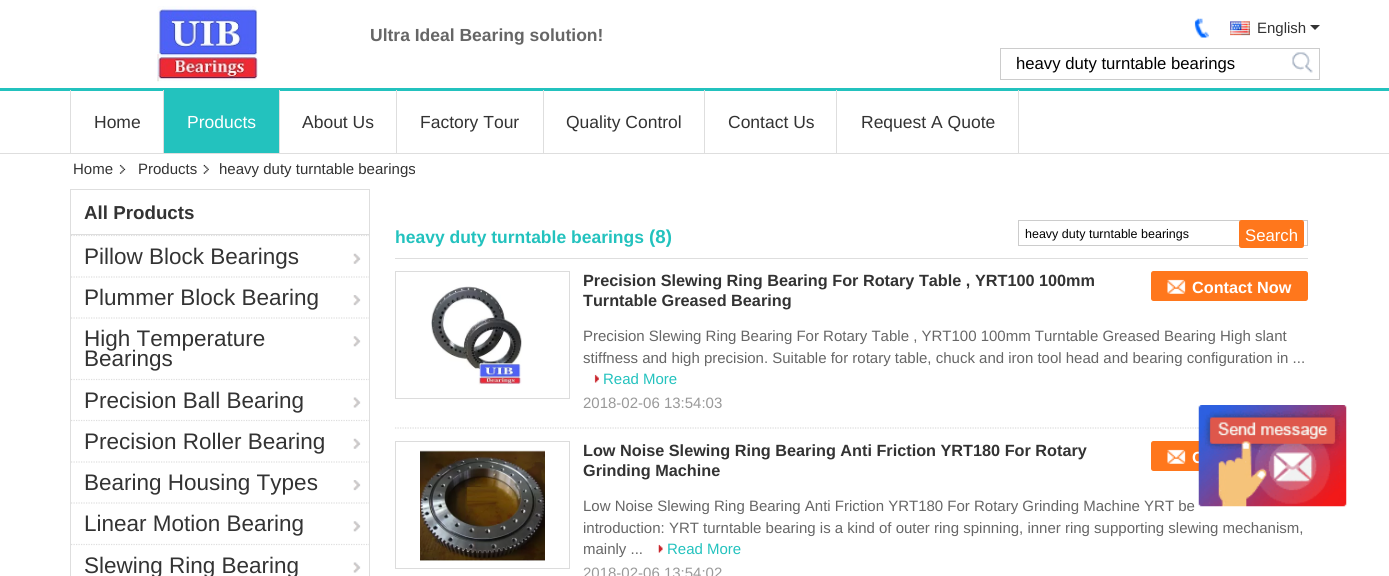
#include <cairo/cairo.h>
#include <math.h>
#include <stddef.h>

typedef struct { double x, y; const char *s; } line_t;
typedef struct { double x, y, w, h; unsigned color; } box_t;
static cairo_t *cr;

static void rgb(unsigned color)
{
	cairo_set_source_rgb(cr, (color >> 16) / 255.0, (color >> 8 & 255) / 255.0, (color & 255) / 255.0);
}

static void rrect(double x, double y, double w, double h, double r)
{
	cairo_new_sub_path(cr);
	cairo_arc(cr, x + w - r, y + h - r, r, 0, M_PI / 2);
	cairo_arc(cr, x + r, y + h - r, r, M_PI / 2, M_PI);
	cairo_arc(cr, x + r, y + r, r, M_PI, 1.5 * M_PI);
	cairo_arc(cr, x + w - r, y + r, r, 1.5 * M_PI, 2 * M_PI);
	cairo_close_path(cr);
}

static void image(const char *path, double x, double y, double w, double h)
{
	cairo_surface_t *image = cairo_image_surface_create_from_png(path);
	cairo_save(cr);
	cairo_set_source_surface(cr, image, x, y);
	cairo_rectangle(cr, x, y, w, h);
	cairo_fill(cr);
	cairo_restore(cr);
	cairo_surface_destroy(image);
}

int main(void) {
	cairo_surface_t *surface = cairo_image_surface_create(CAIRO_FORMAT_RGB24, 1389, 576);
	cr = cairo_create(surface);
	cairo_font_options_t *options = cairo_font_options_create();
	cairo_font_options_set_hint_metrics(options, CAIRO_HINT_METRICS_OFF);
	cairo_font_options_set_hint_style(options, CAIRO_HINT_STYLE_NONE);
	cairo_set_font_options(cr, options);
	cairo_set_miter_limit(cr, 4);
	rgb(0xffffff);
	cairo_paint(cr);
	rgb(0x23c2be);
	cairo_rectangle(cr, 0, 88, 1389, 3);
	cairo_fill(cr);
	image("img/1.png", 157, 6, 101, 76);
	image("img/2.png", 1194, 18, 15, 20);
	image("img/3.png", 1230, 21, 20, 15);
	rgb(0x333333);
	cairo_new_path(cr);
	cairo_move_to(cr, 1310, 25);
	cairo_line_to(cr, 1320, 25);
	cairo_line_to(cr, 1315, 30);
	cairo_close_path(cr);
	cairo_fill(cr);
	{
		static const box_t items[] = {
			{1000, 48, 320, 1, 0xcccccc},
			{1000, 79, 289, 1, 0xcccccc},
			{1000, 48, 1, 32, 0xcccccc},
		};
		for (size_t i = 0; i < sizeof items / sizeof *items; i++) {
			rgb(items[i].color);
			cairo_rectangle(cr, items[i].x, items[i].y, items[i].w, items[i].h);
			cairo_fill(cr);
		}
	}
	image("img/4.png", 1292, 52, 21, 21);
	{
		static const box_t items[] = {
			{1319, 48, 1, 32, 0xcccccc},
			{1289, 79, 31, 1, 0xcccccc},
			{0, 153, 1389, 1, 0xdedede},
			{70, 90, 1, 63, 0xdedede},
			{164, 91, 115, 62, 0x23c2be},
			{163, 90, 1, 63, 0xdedede},
			{279, 90, 1, 63, 0xdedede},
			{396, 90, 1, 63, 0xdedede},
			{543, 90, 1, 63, 0xdedede},
			{704, 90, 1, 63, 0xdedede},
			{1018, 90, 1, 63, 0xdedede},
			{836, 90, 1, 63, 0xdedede},
		};
		for (size_t i = 0; i < sizeof items / sizeof *items; i++) {
			rgb(items[i].color);
			cairo_rectangle(cr, items[i].x, items[i].y, items[i].w, items[i].h);
			cairo_fill(cr);
		}
	}
	image("img/5.png", 119, 164, 7, 10);
	image("img/6.png", 203, 164, 6, 10);
	cairo_rectangle(cr, 70.5, 189.5, 299, 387);
	cairo_set_line_width(cr, 1);
	cairo_stroke(cr);
	cairo_new_path(cr);
	cairo_move_to(cr, 71, 235.5);
	cairo_line_to(cr, 369, 235.5);
	cairo_set_line_width(cr, 1.2);
	cairo_set_dash(cr, (double[]){1.25, 1.25}, 2, 0);
	cairo_stroke(cr);
	cairo_rectangle(cr, 71, 234, 298, 1);
	cairo_fill(cr);
	image("img/7.png", 353, 253, 8, 11);
	image("img/8.png", 353, 295, 8, 11);
	cairo_new_path(cr);
	cairo_move_to(cr, 71, 277);
	cairo_line_to(cr, 369, 277);
	cairo_stroke(cr);
	image("img/9.png", 353, 336, 8, 11);
	cairo_new_path(cr);
	cairo_move_to(cr, 71, 318);
	cairo_line_to(cr, 369, 318);
	cairo_stroke(cr);
	image("img/10.png", 353, 397, 8, 11);
	cairo_new_path(cr);
	cairo_move_to(cr, 71, 379.5);
	cairo_line_to(cr, 369, 379.5);
	cairo_stroke(cr);
	image("img/7.png", 353, 438, 8, 11);
	cairo_new_path(cr);
	cairo_move_to(cr, 71, 420.5);
	cairo_line_to(cr, 369, 420.5);
	cairo_stroke(cr);
	image("img/11.png", 353, 480, 8, 11);
	cairo_new_path(cr);
	cairo_move_to(cr, 71, 462);
	cairo_line_to(cr, 369, 462);
	cairo_stroke(cr);
	image("img/9.png", 353, 521, 8, 11);
	cairo_new_path(cr);
	cairo_move_to(cr, 71, 503);
	cairo_line_to(cr, 369, 503);
	cairo_stroke(cr);
	image("img/10.png", 353, 562, 8, 11);
	cairo_new_path(cr);
	cairo_move_to(cr, 71, 544.5);
	cairo_line_to(cr, 369, 544.5);
	cairo_stroke(cr);
	cairo_rectangle(cr, 395, 258, 913, 1);
	cairo_fill(cr);
	cairo_rectangle(cr, 1018.5, 220.5, 289, 25);
	rgb(0xcccccc);
	cairo_set_line_width(cr, 1);
	cairo_set_dash(cr, NULL, 0, 0);
	cairo_stroke(cr);
	rgb(0xff771c);
	rrect(1239, 220, 65, 28, 2.5);
	cairo_fill(cr);
	cairo_new_path(cr);
	cairo_move_to(cr, 395, 428);
	cairo_line_to(cr, 1307.5, 428);
	rgb(0xdcdcdc);
	cairo_set_line_width(cr, 1.2);
	cairo_set_dash(cr, (double[]){1.25, 1.25}, 2, 0);
	cairo_stroke(cr);
	cairo_rectangle(cr, 395.5, 271.5, 174, 127);
	cairo_set_line_width(cr, 1);
	cairo_set_dash(cr, NULL, 0, 0);
	cairo_stroke(cr);
	image("img/12.png", 431, 286, 91, 99);
	rgb(0xff771c);
	rrect(1151, 271, 157, 30, 2.5);
	cairo_fill(cr);
	image("img/13.png", 1167, 279, 19, 15);
	image("img/14.png", 594, 374, 5, 9);
	cairo_rectangle(cr, 395.5, 441.5, 174, 127);
	rgb(0xdcdcdc);
	cairo_stroke(cr);
	image("img/15.png", 420, 450, 125, 111);
	rgb(0xff771c);
	rrect(1151, 441, 157, 30, 2.5);
	cairo_fill(cr);
	image("img/13.png", 1167, 449, 19, 15);
	image("img/16.png", 658, 544, 5, 9);
	cairo_select_font_face(cr, "Liberation Sans", CAIRO_FONT_SLANT_NORMAL, CAIRO_FONT_WEIGHT_BOLD);
	cairo_set_font_size(cr, 17.5);
	rgb(0x666666);
	cairo_move_to(cr, 370, 41);
	cairo_show_text(cr, "Ultra Ideal Bearing solution!");
	cairo_select_font_face(cr, "Liberation Sans", CAIRO_FONT_SLANT_NORMAL, CAIRO_FONT_WEIGHT_NORMAL);
	cairo_set_font_size(cr, 15);
	rgb(0x333333);
	cairo_move_to(cr, 1257, 33);
	cairo_show_text(cr, "English");
	cairo_set_font_size(cr, 16.7);
	rgb(0x000000);
	cairo_move_to(cr, 1016, 69);
	cairo_show_text(cr, "heavy duty turntable bearings");
	cairo_set_font_size(cr, 17.5);
	rgb(0x333333);
	cairo_move_to(cr, 94, 128);
	cairo_show_text(cr, "Home");
	rgb(0xffffff);
	cairo_move_to(cr, 187, 128);
	cairo_show_text(cr, "Products");
	rgb(0x333333);
	{
		static const line_t items[] = {
			{302, 128, "About Us"},
			{420, 128, "Factory Tour"},
			{566, 128, "Quality Control"},
			{728, 128, "Contact Us"},
			{861, 128, "Request A Quote"},
		};
		for (size_t i = 0; i < sizeof items / sizeof *items; i++) {
			cairo_move_to(cr, items[i].x, items[i].y);
			cairo_show_text(cr, items[i].s);
		}
	}
	cairo_set_font_size(cr, 15);
	{
		static const line_t items[] = {
			{73, 174, "Home"},
			{138, 174, "Products"},
			{219, 174, "heavy duty turntable bearings"},
		};
		for (size_t i = 0; i < sizeof items / sizeof *items; i++) {
			cairo_move_to(cr, items[i].x, items[i].y);
			cairo_show_text(cr, items[i].s);
		}
	}
	cairo_select_font_face(cr, "Liberation Sans", CAIRO_FONT_SLANT_NORMAL, CAIRO_FONT_WEIGHT_BOLD);
	cairo_set_font_size(cr, 18.75);
	cairo_move_to(cr, 84, 219);
	cairo_show_text(cr, "All Products");
	cairo_select_font_face(cr, "Liberation Sans", CAIRO_FONT_SLANT_NORMAL, CAIRO_FONT_WEIGHT_NORMAL);
	cairo_set_font_size(cr, 22.5);
	{
		static const line_t items[] = {
			{84, 264, "Pillow Block Bearings"},
			{84, 305, "Plummer Block Bearing"},
			{84, 346, "High Temperature"},
			{84, 366, "Bearings"},
			{84, 408, "Precision Ball Bearing"},
			{84, 449, "Precision Roller Bearing"},
			{84, 490, "Bearing Housing Types"},
			{84, 531, "Linear Motion Bearing"},
			{84, 573, "Slewing Ring Bearing"},
		};
		for (size_t i = 0; i < sizeof items / sizeof *items; i++) {
			cairo_move_to(cr, items[i].x, items[i].y);
			cairo_show_text(cr, items[i].s);
		}
	}
	cairo_select_font_face(cr, "Liberation Sans", CAIRO_FONT_SLANT_NORMAL, CAIRO_FONT_WEIGHT_BOLD);
	cairo_set_font_size(cr, 17.5);
	rgb(0x23c2be);
	cairo_move_to(cr, 395, 243);
	cairo_show_text(cr, "heavy duty turntable bearings");
	cairo_set_font_size(cr, 18.75);
	cairo_move_to(cr, 649, 243);
	cairo_show_text(cr, "(8)");
	cairo_select_font_face(cr, "Liberation Sans", CAIRO_FONT_SLANT_NORMAL, CAIRO_FONT_WEIGHT_NORMAL);
	cairo_set_font_size(cr, 12.5);
	rgb(0x000000);
	cairo_move_to(cr, 1025, 238);
	cairo_show_text(cr, "heavy duty turntable bearings");
	cairo_set_font_size(cr, 16.7);
	rgb(0xffffff);
	cairo_move_to(cr, 1245, 241);
	cairo_show_text(cr, "Search");
	cairo_select_font_face(cr, "Liberation Sans", CAIRO_FONT_SLANT_NORMAL, CAIRO_FONT_WEIGHT_BOLD);
	cairo_set_font_size(cr, 16.25);
	rgb(0x333333);
	cairo_move_to(cr, 583, 286);
	cairo_show_text(cr, "Precision Slewing Ring Bearing For Rotary Table , YRT100 100mm");
	rgb(0xffffff);
	cairo_move_to(cr, 1192, 293);
	cairo_show_text(cr, "Contact Now");
	rgb(0x333333);
	cairo_move_to(cr, 583, 306);
	cairo_show_text(cr, "Turntable Greased Bearing");
	cairo_select_font_face(cr, "Liberation Sans", CAIRO_FONT_SLANT_NORMAL, CAIRO_FONT_WEIGHT_NORMAL);
	cairo_set_font_size(cr, 15);
	rgb(0x666666);
	cairo_move_to(cr, 583, 341);
	cairo_show_text(cr, "Precision Slewing Ring Bearing For Rotary Table , YRT100 100mm Turntable Greased Bearing High slant");
	cairo_move_to(cr, 583, 363);
	cairo_show_text(cr, "stiffness and high precision. Suitable for rotary table, chuck and iron tool head and bearing configuration in ...");
	rgb(0x23c2be);
	cairo_move_to(cr, 603, 384);
	cairo_show_text(cr, "Read More");
	rgb(0x999999);
	cairo_move_to(cr, 583, 408);
	cairo_show_text(cr, "2018-02-06 13:54:03");
	cairo_select_font_face(cr, "Liberation Sans", CAIRO_FONT_SLANT_NORMAL, CAIRO_FONT_WEIGHT_BOLD);
	cairo_set_font_size(cr, 16.25);
	rgb(0x333333);
	cairo_move_to(cr, 583, 456);
	cairo_show_text(cr, "Low Noise Slewing Ring Bearing Anti Friction YRT180 For Rotary");
	rgb(0xffffff);
	cairo_move_to(cr, 1192, 463);
	cairo_show_text(cr, "C");
	rgb(0x333333);
	cairo_move_to(cr, 583, 476);
	cairo_show_text(cr, "Grinding Machine");
	cairo_select_font_face(cr, "Liberation Sans", CAIRO_FONT_SLANT_NORMAL, CAIRO_FONT_WEIGHT_NORMAL);
	cairo_set_font_size(cr, 15);
	rgb(0x666666);
	{
		static const line_t items[] = {
			{583, 511, "Low Noise Slewing Ring Bearing Anti Friction YRT180 For Rotary Grinding Machine YRT be"},
			{583, 533, "introduction: YRT turntable bearing is a kind of outer ring spinning, inner ring supporting slewing mechanism,"},
			{583, 554, "mainly ..."},
		};
		for (size_t i = 0; i < sizeof items / sizeof *items; i++) {
			cairo_move_to(cr, items[i].x, items[i].y);
			cairo_show_text(cr, items[i].s);
		}
	}
	rgb(0x23c2be);
	cairo_move_to(cr, 667, 554);
	cairo_show_text(cr, "Read More");
	rgb(0x999999);
	cairo_move_to(cr, 583, 578);
	cairo_show_text(cr, "2018-02-06 13:54:02");
	image("img/17.png", 1198, 405, 149, 102);
	cairo_surface_write_to_png(surface, "page.png");
	cairo_font_options_destroy(options);
	cairo_destroy(cr);
	cairo_surface_destroy(surface);
	return 0;
}
